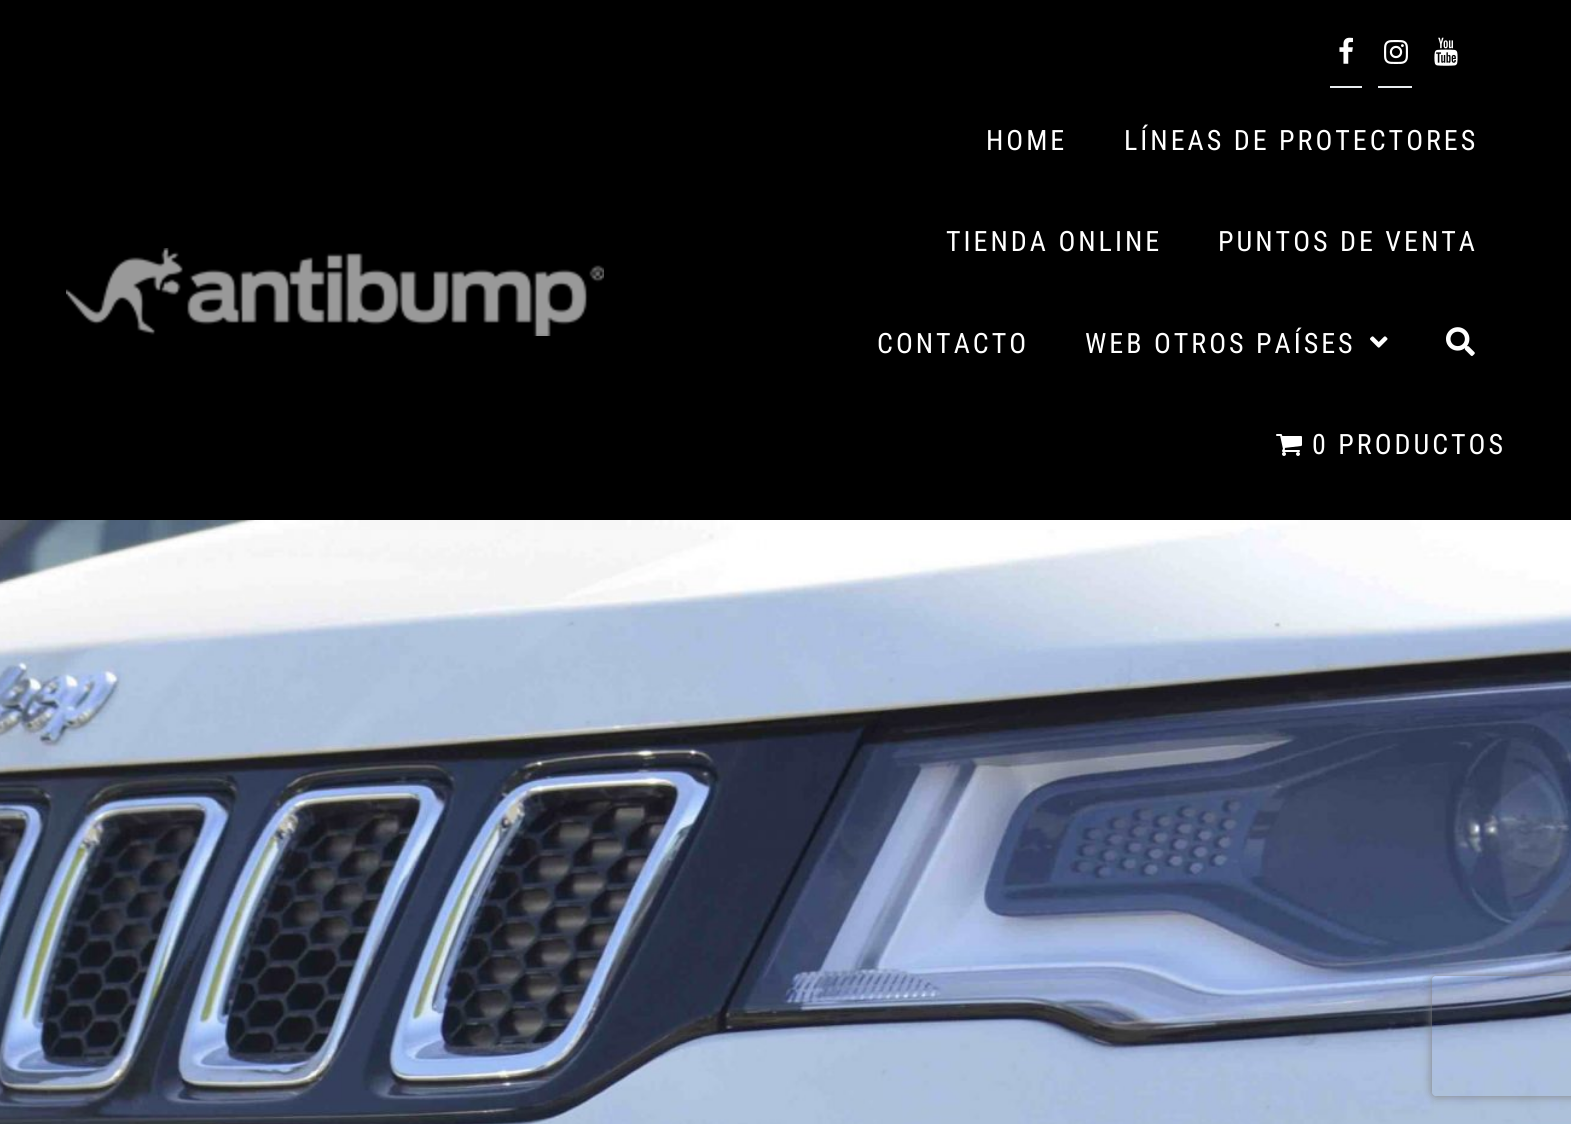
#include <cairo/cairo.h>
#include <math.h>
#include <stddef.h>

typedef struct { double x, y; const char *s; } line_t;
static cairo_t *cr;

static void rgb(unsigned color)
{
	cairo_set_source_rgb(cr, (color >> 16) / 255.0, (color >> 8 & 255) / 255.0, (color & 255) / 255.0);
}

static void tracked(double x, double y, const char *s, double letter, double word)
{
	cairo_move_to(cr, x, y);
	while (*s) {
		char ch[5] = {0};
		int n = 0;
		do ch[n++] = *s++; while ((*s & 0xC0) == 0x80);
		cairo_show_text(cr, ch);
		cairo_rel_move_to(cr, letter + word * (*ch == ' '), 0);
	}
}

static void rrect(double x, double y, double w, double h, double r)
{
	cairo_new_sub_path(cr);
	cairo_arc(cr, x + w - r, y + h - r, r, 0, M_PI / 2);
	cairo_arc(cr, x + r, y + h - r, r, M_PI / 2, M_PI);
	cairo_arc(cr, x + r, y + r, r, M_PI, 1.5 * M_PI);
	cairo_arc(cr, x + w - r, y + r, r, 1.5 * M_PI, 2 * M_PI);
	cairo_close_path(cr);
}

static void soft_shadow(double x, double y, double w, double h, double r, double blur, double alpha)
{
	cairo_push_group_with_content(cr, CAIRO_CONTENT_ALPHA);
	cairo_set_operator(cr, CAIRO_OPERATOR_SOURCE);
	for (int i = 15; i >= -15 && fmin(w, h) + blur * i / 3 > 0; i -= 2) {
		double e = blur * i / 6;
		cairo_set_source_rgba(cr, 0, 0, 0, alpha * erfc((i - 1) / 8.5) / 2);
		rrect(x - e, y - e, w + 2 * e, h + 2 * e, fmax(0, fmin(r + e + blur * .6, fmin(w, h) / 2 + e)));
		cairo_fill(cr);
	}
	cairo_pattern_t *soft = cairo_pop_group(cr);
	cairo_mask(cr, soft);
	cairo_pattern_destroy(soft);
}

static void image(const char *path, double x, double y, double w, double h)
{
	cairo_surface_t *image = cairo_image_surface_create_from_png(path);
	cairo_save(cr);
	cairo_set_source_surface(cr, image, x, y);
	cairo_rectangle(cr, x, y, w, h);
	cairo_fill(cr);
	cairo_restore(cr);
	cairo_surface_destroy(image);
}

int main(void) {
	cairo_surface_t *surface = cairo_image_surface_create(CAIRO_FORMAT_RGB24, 1571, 1124);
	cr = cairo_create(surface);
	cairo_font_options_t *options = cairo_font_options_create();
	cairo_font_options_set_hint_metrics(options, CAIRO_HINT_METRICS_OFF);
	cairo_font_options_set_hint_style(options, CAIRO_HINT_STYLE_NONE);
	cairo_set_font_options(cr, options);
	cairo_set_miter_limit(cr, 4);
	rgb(0x000000);
	cairo_paint(cr);
	rgb(0xe9ecef);
	cairo_rectangle(cr, 1330, 86, 32, 2);
	cairo_fill(cr);
	image("img/1.png", 1339, 37, 14, 27);
	cairo_rectangle(cr, 1378, 86, 34, 2);
	cairo_fill(cr);
	image("img/2.png", 1384, 40, 24, 24);
	image("img/3.png", 1434, 37, 24, 29);
	image("img/4.png", 66, 248, 538, 88);
	image("img/5.png", 1370, 336, 18, 12);
	image("img/6.png", 1446, 327, 29, 29);
	image("img/7.png", 1276, 434, 26, 22);
	image("img/8.png", 0, 520, 1571, 604);
	cairo_save(cr);
	cairo_set_fill_rule(cr, CAIRO_FILL_RULE_EVEN_ODD);
	cairo_new_path(cr);
	cairo_move_to(cr, 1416, 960);
	cairo_line_to(cr, 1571, 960);
	cairo_line_to(cr, 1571, 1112);
	cairo_line_to(cr, 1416, 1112);
	cairo_close_path(cr);
	cairo_move_to(cr, 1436, 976);
	cairo_line_to(cr, 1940, 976);
	cairo_curve_to(cr, 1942, 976, 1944, 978, 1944, 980);
	cairo_line_to(cr, 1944, 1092);
	cairo_curve_to(cr, 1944, 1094, 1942, 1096, 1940, 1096);
	cairo_line_to(cr, 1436, 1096);
	cairo_curve_to(cr, 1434, 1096, 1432, 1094, 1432, 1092);
	cairo_line_to(cr, 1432, 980);
	cairo_curve_to(cr, 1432, 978, 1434, 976, 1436, 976);
	cairo_close_path(cr);
	cairo_clip(cr);
	rgb(0x808080);
	soft_shadow(1432, 976, 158, 120, 4, 5, 1);
	cairo_restore(cr);
	cairo_select_font_face(cr, "Roboto Condensed", CAIRO_FONT_SLANT_NORMAL, CAIRO_FONT_WEIGHT_NORMAL);
	cairo_set_font_size(cr, 28);
	rgb(0xffffff);
	{
		static const line_t items[] = {
			{986, 150, "HOME"},
			{1124, 150, "LÍNEAS DE PROTECTORES"},
			{946, 251, "TIENDA ONLINE"},
			{1218, 251, "PUNTOS DE VENTA"},
			{877, 353, "CONTACTO"},
			{1085, 353, "WEB OTROS PAÍSES"},
			{1312, 454, "0 PRODUCTOS"},
		};
		for (size_t i = 0; i < sizeof items / sizeof *items; i++) {
			tracked(items[i].x, items[i].y, items[i].s, 3, 0);
		}
	}
	cairo_surface_write_to_png(surface, "page.png");
	cairo_font_options_destroy(options);
	cairo_destroy(cr);
	cairo_surface_destroy(surface);
	return 0;
}
